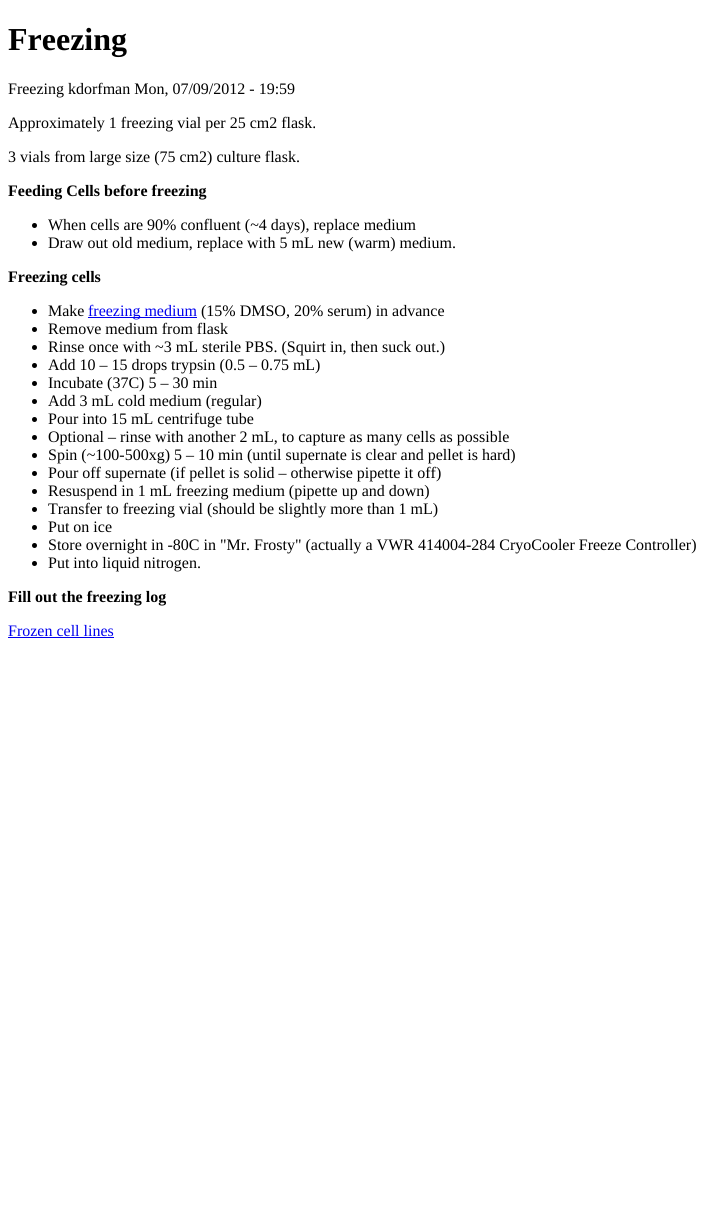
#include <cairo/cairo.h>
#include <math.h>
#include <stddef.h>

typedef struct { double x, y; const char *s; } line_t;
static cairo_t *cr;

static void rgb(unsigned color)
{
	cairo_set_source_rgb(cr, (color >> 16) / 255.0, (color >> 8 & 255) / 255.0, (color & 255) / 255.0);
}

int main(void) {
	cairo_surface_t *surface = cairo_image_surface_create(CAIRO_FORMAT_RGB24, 706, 1222);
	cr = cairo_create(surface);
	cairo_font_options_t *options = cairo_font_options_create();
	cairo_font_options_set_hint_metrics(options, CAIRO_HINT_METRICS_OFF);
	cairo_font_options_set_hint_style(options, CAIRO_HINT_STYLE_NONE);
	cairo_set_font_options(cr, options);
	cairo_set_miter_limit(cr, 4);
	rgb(0xffffff);
	cairo_paint(cr);
	rgb(0x000000);
	cairo_arc(cr, 34.5, 225.5, 2.5, 0, 2 * M_PI);
	cairo_fill(cr);
	cairo_arc(cr, 34.5, 243.5, 2.5, 0, 2 * M_PI);
	cairo_fill(cr);
	cairo_arc(cr, 34.5, 311.5, 2.5, 0, 2 * M_PI);
	cairo_fill(cr);
	rgb(0x0000ee);
	cairo_rectangle(cr, 88, 317, 109, 1);
	cairo_fill(cr);
	rgb(0x000000);
	cairo_arc(cr, 34.5, 329.5, 2.5, 0, 2 * M_PI);
	cairo_fill(cr);
	cairo_arc(cr, 34.5, 347.5, 2.5, 0, 2 * M_PI);
	cairo_fill(cr);
	cairo_arc(cr, 34.5, 365.5, 2.5, 0, 2 * M_PI);
	cairo_fill(cr);
	cairo_arc(cr, 34.5, 383.5, 2.5, 0, 2 * M_PI);
	cairo_fill(cr);
	cairo_arc(cr, 34.5, 401.5, 2.5, 0, 2 * M_PI);
	cairo_fill(cr);
	cairo_arc(cr, 34.5, 419.5, 2.5, 0, 2 * M_PI);
	cairo_fill(cr);
	cairo_arc(cr, 34.5, 437.5, 2.5, 0, 2 * M_PI);
	cairo_fill(cr);
	cairo_arc(cr, 34.5, 455.5, 2.5, 0, 2 * M_PI);
	cairo_fill(cr);
	cairo_arc(cr, 34.5, 473.5, 2.5, 0, 2 * M_PI);
	cairo_fill(cr);
	cairo_arc(cr, 34.5, 491.5, 2.5, 0, 2 * M_PI);
	cairo_fill(cr);
	cairo_arc(cr, 34.5, 509.5, 2.5, 0, 2 * M_PI);
	cairo_fill(cr);
	cairo_arc(cr, 34.5, 527.5, 2.5, 0, 2 * M_PI);
	cairo_fill(cr);
	cairo_arc(cr, 34.5, 545.5, 2.5, 0, 2 * M_PI);
	cairo_fill(cr);
	cairo_arc(cr, 34.5, 563.5, 2.5, 0, 2 * M_PI);
	cairo_fill(cr);
	rgb(0x0000ee);
	cairo_rectangle(cr, 8, 637, 106, 1);
	cairo_fill(cr);
	cairo_select_font_face(cr, "Liberation Serif", CAIRO_FONT_SLANT_NORMAL, CAIRO_FONT_WEIGHT_BOLD);
	cairo_set_font_size(cr, 32);
	rgb(0x000000);
	cairo_move_to(cr, 8, 50);
	cairo_show_text(cr, "Freezing");
	cairo_select_font_face(cr, "Liberation Serif", CAIRO_FONT_SLANT_NORMAL, CAIRO_FONT_WEIGHT_NORMAL);
	cairo_set_font_size(cr, 16);
	{
		static const line_t items[] = {
			{8, 94, "Freezing kdorfman Mon, 07/09/2012 - 19:59"},
			{8, 128, "Approximately 1 freezing vial per 25 cm2 flask."},
			{8, 162, "3 vials from large size (75 cm2) culture flask."},
		};
		for (size_t i = 0; i < sizeof items / sizeof *items; i++) {
			cairo_move_to(cr, items[i].x, items[i].y);
			cairo_show_text(cr, items[i].s);
		}
	}
	cairo_select_font_face(cr, "Liberation Serif", CAIRO_FONT_SLANT_NORMAL, CAIRO_FONT_WEIGHT_BOLD);
	cairo_move_to(cr, 8, 196);
	cairo_show_text(cr, "Feeding Cells before freezing");
	cairo_select_font_face(cr, "Liberation Serif", CAIRO_FONT_SLANT_NORMAL, CAIRO_FONT_WEIGHT_NORMAL);
	cairo_move_to(cr, 48, 230);
	cairo_show_text(cr, "When cells are 90% confluent (~4 days), replace medium");
	cairo_move_to(cr, 48, 248);
	cairo_show_text(cr, "Draw out old medium, replace with 5 mL new (warm) medium.");
	cairo_select_font_face(cr, "Liberation Serif", CAIRO_FONT_SLANT_NORMAL, CAIRO_FONT_WEIGHT_BOLD);
	cairo_move_to(cr, 8, 282);
	cairo_show_text(cr, "Freezing cells");
	cairo_select_font_face(cr, "Liberation Serif", CAIRO_FONT_SLANT_NORMAL, CAIRO_FONT_WEIGHT_NORMAL);
	cairo_move_to(cr, 48, 316);
	cairo_show_text(cr, "Make");
	rgb(0x0000ee);
	cairo_move_to(cr, 88, 316);
	cairo_show_text(cr, "freezing medium");
	rgb(0x000000);
	{
		static const line_t items[] = {
			{201, 316, "(15% DMSO, 20% serum) in advance"},
			{48, 334, "Remove medium from flask"},
			{48, 352, "Rinse once with ~3 mL sterile PBS. (Squirt in, then suck out.)"},
			{48, 370, "Add 10 – 15 drops trypsin (0.5 – 0.75 mL)"},
			{48, 388, "Incubate (37C) 5 – 30 min"},
			{48, 406, "Add 3 mL cold medium (regular)"},
			{48, 424, "Pour into 15 mL centrifuge tube"},
			{48, 442, "Optional – rinse with another 2 mL, to capture as many cells as possible"},
			{48, 460, "Spin (~100-500xg) 5 – 10 min (until supernate is clear and pellet is hard)"},
			{48, 478, "Pour off supernate (if pellet is solid – otherwise pipette it off)"},
			{48, 496, "Resuspend in 1 mL freezing medium (pipette up and down)"},
			{48, 514, "Transfer to freezing vial (should be slightly more than 1 mL)"},
			{48, 532, "Put on ice"},
			{48, 550, "Store overnight in -80C in \"Mr. Frosty\" (actually a VWR 414004-284 CryoCooler Freeze Controller)"},
			{48, 568, "Put into liquid nitrogen."},
		};
		for (size_t i = 0; i < sizeof items / sizeof *items; i++) {
			cairo_move_to(cr, items[i].x, items[i].y);
			cairo_show_text(cr, items[i].s);
		}
	}
	cairo_select_font_face(cr, "Liberation Serif", CAIRO_FONT_SLANT_NORMAL, CAIRO_FONT_WEIGHT_BOLD);
	cairo_move_to(cr, 8, 602);
	cairo_show_text(cr, "Fill out the freezing log");
	cairo_select_font_face(cr, "Liberation Serif", CAIRO_FONT_SLANT_NORMAL, CAIRO_FONT_WEIGHT_NORMAL);
	rgb(0x0000ee);
	cairo_move_to(cr, 8, 636);
	cairo_show_text(cr, "Frozen cell lines");
	cairo_surface_write_to_png(surface, "page.png");
	cairo_font_options_destroy(options);
	cairo_destroy(cr);
	cairo_surface_destroy(surface);
	return 0;
}
